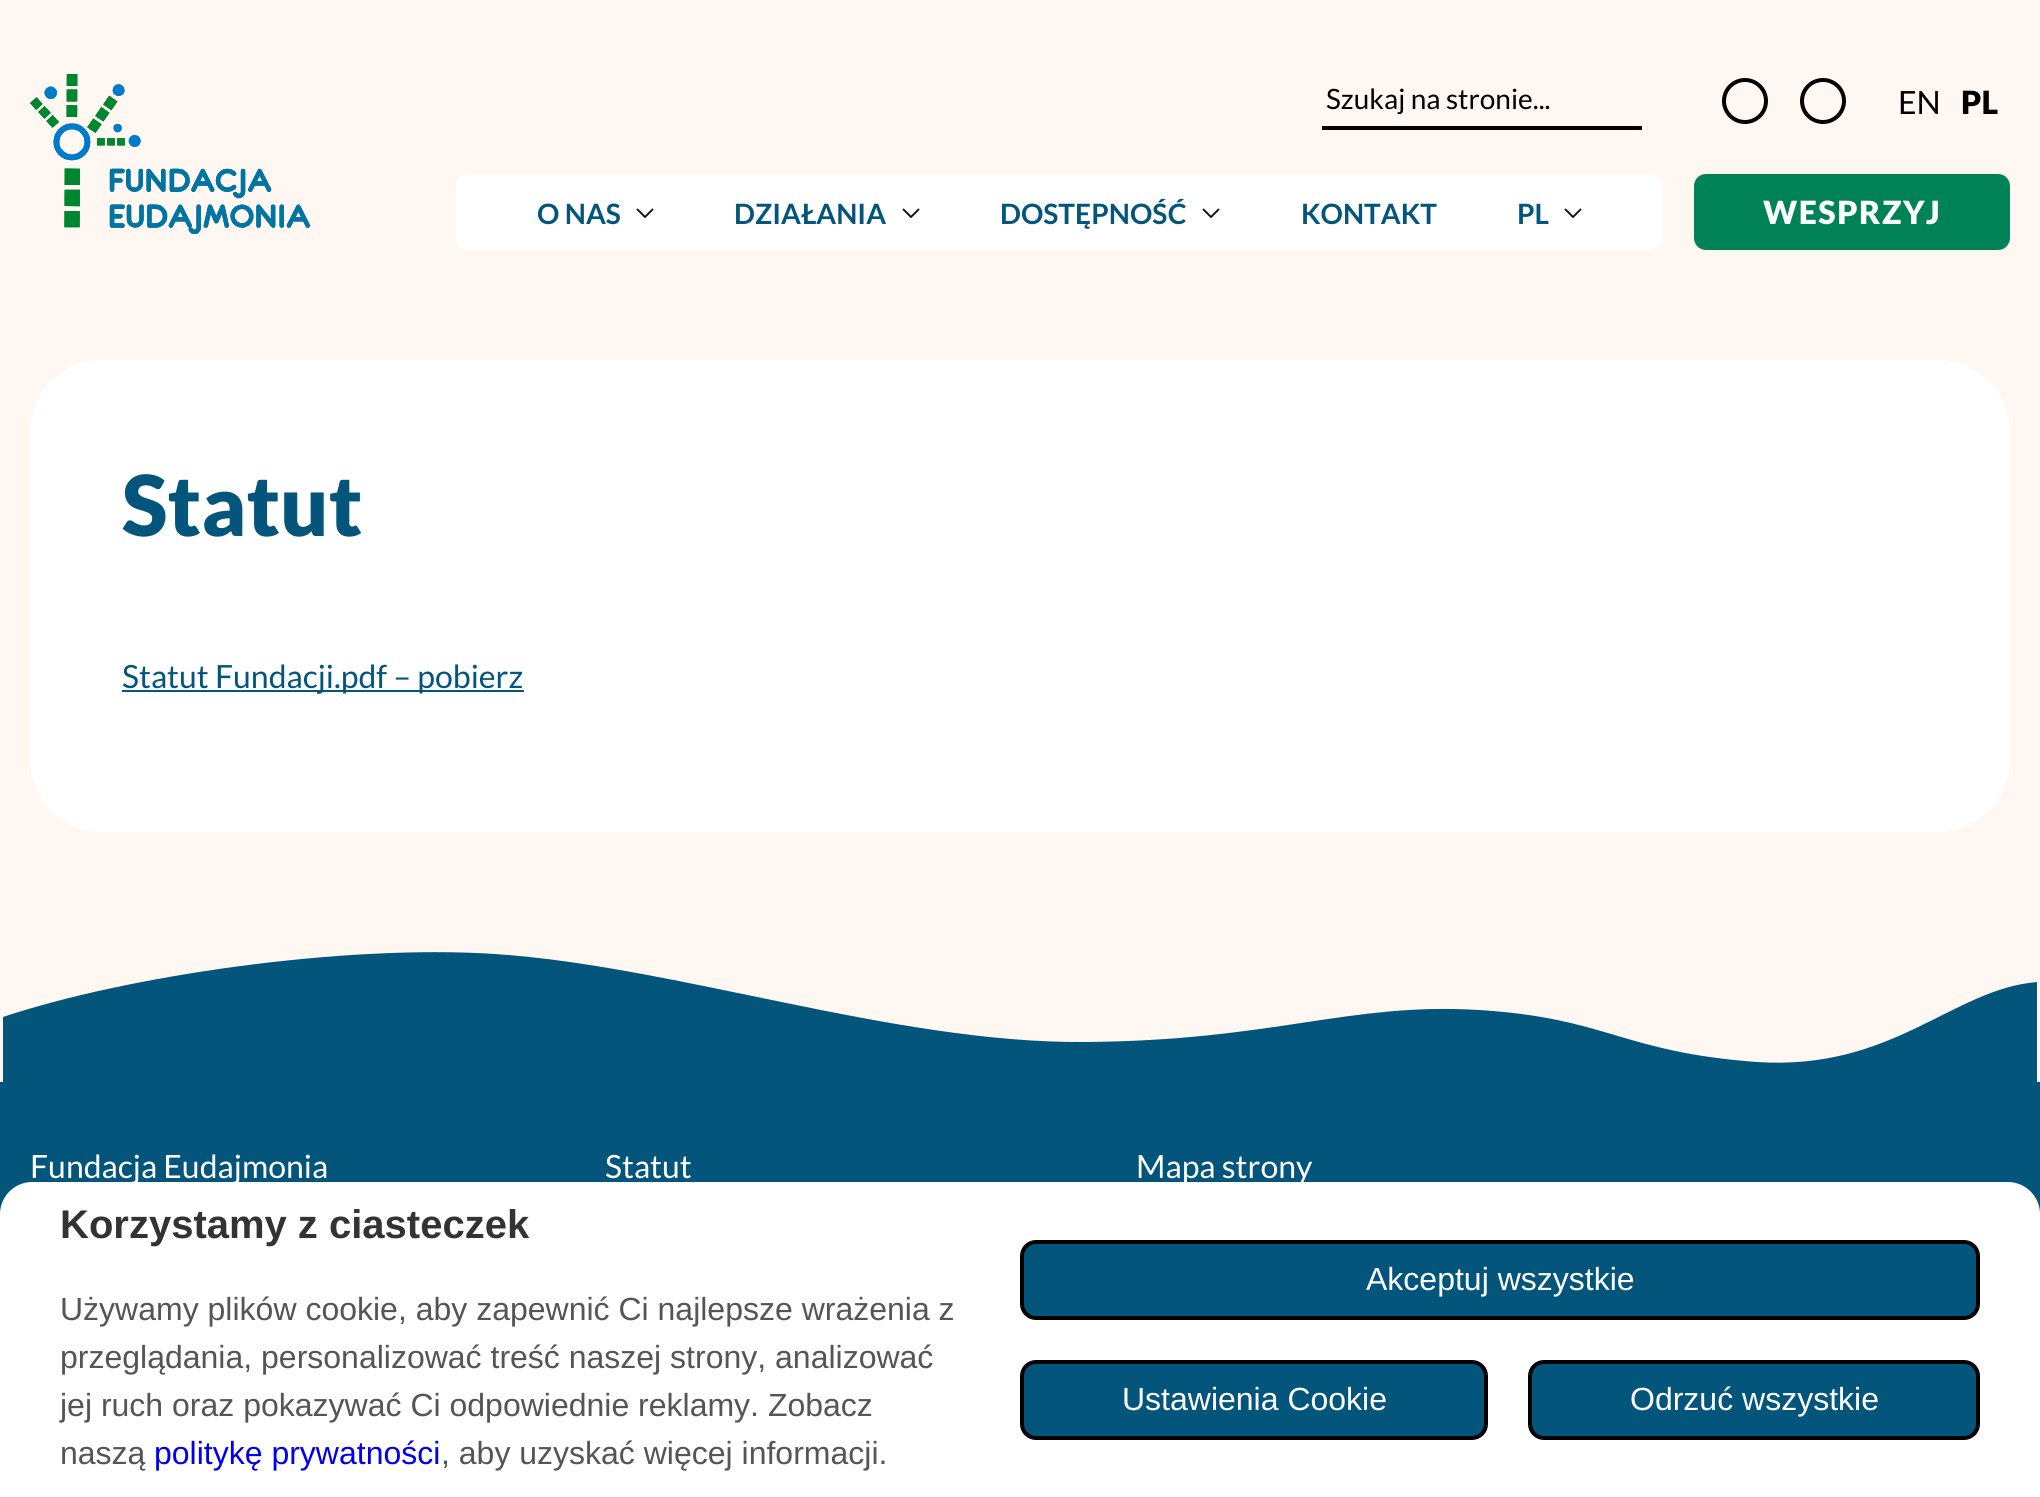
#include <cairo/cairo.h>
#include <math.h>
#include <stddef.h>

typedef struct { double x, y; const char *s; } line_t;
static cairo_t *cr;

static void rgb(unsigned color)
{
	cairo_set_source_rgb(cr, (color >> 16) / 255.0, (color >> 8 & 255) / 255.0, (color & 255) / 255.0);
}

static void tracked(double x, double y, const char *s, double letter, double word)
{
	cairo_move_to(cr, x, y);
	while (*s) {
		char ch[5] = {0};
		int n = 0;
		do ch[n++] = *s++; while ((*s & 0xC0) == 0x80);
		cairo_show_text(cr, ch);
		cairo_rel_move_to(cr, letter + word * (*ch == ' '), 0);
	}
}

static void rrect(double x, double y, double w, double h, double r)
{
	cairo_new_sub_path(cr);
	cairo_arc(cr, x + w - r, y + h - r, r, 0, M_PI / 2);
	cairo_arc(cr, x + r, y + h - r, r, M_PI / 2, M_PI);
	cairo_arc(cr, x + r, y + r, r, M_PI, 1.5 * M_PI);
	cairo_arc(cr, x + w - r, y + r, r, 1.5 * M_PI, 2 * M_PI);
	cairo_close_path(cr);
}

static void image(const char *path, double x, double y, double w, double h)
{
	cairo_surface_t *image = cairo_image_surface_create_from_png(path);
	cairo_save(cr);
	cairo_set_source_surface(cr, image, x, y);
	cairo_rectangle(cr, x, y, w, h);
	cairo_fill(cr);
	cairo_restore(cr);
	cairo_surface_destroy(image);
}

int main(void) {
	cairo_surface_t *surface = cairo_image_surface_create(CAIRO_FORMAT_RGB24, 2040, 1497);
	cr = cairo_create(surface);
	cairo_font_options_t *options = cairo_font_options_create();
	cairo_font_options_set_hint_metrics(options, CAIRO_HINT_METRICS_OFF);
	cairo_font_options_set_hint_style(options, CAIRO_HINT_STYLE_NONE);
	cairo_set_font_options(cr, options);
	cairo_set_miter_limit(cr, 4);
	rgb(0xfff8f2);
	cairo_paint(cr);
	image("img/1.png", 30, 74, 280, 160);
	rgb(0x000000);
	cairo_rectangle(cr, 1322, 126, 320, 4);
	cairo_fill(cr);
	cairo_arc(cr, 1745, 101, 21, 0, 2 * M_PI);
	cairo_set_line_width(cr, 4);
	cairo_stroke(cr);
	cairo_arc(cr, 1823, 101, 21, 0, 2 * M_PI);
	cairo_stroke(cr);
	rgb(0xffffff);
	rrect(456, 174, 1206, 76, 12);
	cairo_fill(cr);
	cairo_new_path(cr);
	cairo_move_to(cr, 637.5, 209.5);
	cairo_line_to(cr, 645, 217);
	cairo_line_to(cr, 652.5, 209.5);
	rgb(0x111111);
	cairo_set_line_width(cr, 1.9);
	cairo_set_line_cap(cr, CAIRO_LINE_CAP_ROUND);
	cairo_set_line_join(cr, CAIRO_LINE_JOIN_ROUND);
	cairo_stroke(cr);
	cairo_new_path(cr);
	cairo_move_to(cr, 903.5, 209.5);
	cairo_line_to(cr, 911, 217);
	cairo_line_to(cr, 918.5, 209.5);
	cairo_stroke(cr);
	cairo_new_path(cr);
	cairo_move_to(cr, 1203.5, 209.5);
	cairo_line_to(cr, 1211, 217);
	cairo_line_to(cr, 1218.5, 209.5);
	cairo_stroke(cr);
	cairo_new_path(cr);
	cairo_move_to(cr, 1565.5, 209.5);
	cairo_line_to(cr, 1573, 217);
	cairo_line_to(cr, 1580.5, 209.5);
	cairo_stroke(cr);
	rgb(0x008257);
	rrect(1694, 174, 316, 76, 12);
	cairo_fill(cr);
	rgb(0xffffff);
	rrect(30, 360, 1980, 472, 72);
	cairo_fill(cr);
	rgb(0x03557b);
	cairo_rectangle(cr, 122, 690, 402, 2);
	cairo_fill(cr);
	cairo_new_path(cr);
	cairo_move_to(cr, 3, 1017);
	cairo_curve_to(cr, 125, 976, 343, 944, 495, 954);
	cairo_curve_to(cr, 676, 966, 893, 1043, 1083, 1042);
	cairo_curve_to(cr, 1273, 1041, 1349, 1002, 1479, 1010);
	cairo_curve_to(cr, 1608, 1018, 1621, 1052, 1757, 1062);
	cairo_curve_to(cr, 1893, 1071, 1952, 989, 2037, 982);
	cairo_line_to(cr, 2037, 1086);
	cairo_line_to(cr, 3, 1086);
	cairo_close_path(cr);
	cairo_fill(cr);
	cairo_rectangle(cr, 0, 1082, 2040, 132);
	cairo_fill(cr);
	rgb(0xffffff);
	cairo_new_path(cr);
	cairo_move_to(cr, 32, 1182);
	cairo_line_to(cr, 2008, 1182);
	cairo_curve_to(cr, 2025.5, 1182, 2040, 1196.5, 2040, 1214);
	cairo_line_to(cr, 2040, 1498);
	cairo_line_to(cr, 0, 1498);
	cairo_line_to(cr, 0, 1214);
	cairo_curve_to(cr, 0, 1196.5, 14.5, 1182, 32, 1182);
	cairo_close_path(cr);
	cairo_fill(cr);
	rgb(0x03557b);
	rrect(1022, 1242, 956, 76, 14);
	cairo_fill_preserve(cr);
	rgb(0x000000);
	cairo_set_line_width(cr, 4);
	cairo_set_line_cap(cr, CAIRO_LINE_CAP_BUTT);
	cairo_set_line_join(cr, CAIRO_LINE_JOIN_MITER);
	cairo_stroke(cr);
	rgb(0x03557b);
	rrect(1022, 1362, 464, 76, 14);
	cairo_fill_preserve(cr);
	rgb(0x000000);
	cairo_stroke(cr);
	rgb(0x03557b);
	rrect(1530, 1362, 448, 76, 14);
	cairo_fill_preserve(cr);
	rgb(0x000000);
	cairo_stroke(cr);
	cairo_select_font_face(cr, "Lato", CAIRO_FONT_SLANT_NORMAL, CAIRO_FONT_WEIGHT_NORMAL);
	cairo_set_font_size(cr, 28);
	cairo_move_to(cr, 1326, 109);
	cairo_show_text(cr, "Szukaj na stronie...");
	cairo_set_font_size(cr, 32);
	cairo_move_to(cr, 1898, 114);
	cairo_show_text(cr, "EN");
	cairo_select_font_face(cr, "Lato Black", CAIRO_FONT_SLANT_NORMAL, CAIRO_FONT_WEIGHT_NORMAL);
	cairo_move_to(cr, 1961, 114);
	cairo_show_text(cr, "PL");
	cairo_select_font_face(cr, "Lato", CAIRO_FONT_SLANT_NORMAL, CAIRO_FONT_WEIGHT_BOLD);
	cairo_set_font_size(cr, 28);
	rgb(0x03557b);
	{
		static const line_t items[] = {
			{537, 224, "O NAS"},
			{734, 224, "DZIAŁANIA"},
			{1000, 224, "DOSTĘPNOŚĆ"},
			{1301, 224, "KONTAKT"},
			{1517, 224, "PL"},
		};
		for (size_t i = 0; i < sizeof items / sizeof *items; i++) {
			cairo_move_to(cr, items[i].x, items[i].y);
			cairo_show_text(cr, items[i].s);
		}
	}
	cairo_select_font_face(cr, "Lato Black", CAIRO_FONT_SLANT_NORMAL, CAIRO_FONT_WEIGHT_NORMAL);
	cairo_set_font_size(cr, 32);
	rgb(0xffffff);
	tracked(1763, 224, "WESPRZYJ", 1.5, 0);
	cairo_set_font_size(cr, 84);
	rgb(0x03557b);
	cairo_move_to(cr, 122, 536);
	cairo_show_text(cr, "Statut");
	cairo_select_font_face(cr, "Lato", CAIRO_FONT_SLANT_NORMAL, CAIRO_FONT_WEIGHT_NORMAL);
	cairo_set_font_size(cr, 32);
	cairo_move_to(cr, 122, 688);
	cairo_show_text(cr, "Statut Fundacji.pdf – pobierz");
	rgb(0xffffff);
	{
		static const line_t items[] = {
			{30, 1178, "Fundacja Eudajmonia"},
			{605, 1178, "Statut"},
			{1136, 1178, "Mapa strony"},
		};
		for (size_t i = 0; i < sizeof items / sizeof *items; i++) {
			cairo_move_to(cr, items[i].x, items[i].y);
			cairo_show_text(cr, items[i].s);
		}
	}
	cairo_select_font_face(cr, "Liberation Sans", CAIRO_FONT_SLANT_NORMAL, CAIRO_FONT_WEIGHT_BOLD);
	cairo_set_font_size(cr, 40);
	rgb(0x333333);
	cairo_move_to(cr, 60, 1238);
	cairo_show_text(cr, "Korzystamy z ciasteczek");
	cairo_select_font_face(cr, "Liberation Sans", CAIRO_FONT_SLANT_NORMAL, CAIRO_FONT_WEIGHT_NORMAL);
	cairo_set_font_size(cr, 32);
	rgb(0x555555);
	{
		static const line_t items[] = {
			{60, 1320, "Używamy plików cookie, aby zapewnić Ci najlepsze wrażenia z"},
			{60, 1368, "przeglądania, personalizować treść naszej strony, analizować"},
			{60, 1416, "jej ruch oraz pokazywać Ci odpowiednie reklamy. Zobacz"},
			{60, 1464, "naszą"},
		};
		for (size_t i = 0; i < sizeof items / sizeof *items; i++) {
			cairo_move_to(cr, items[i].x, items[i].y);
			cairo_show_text(cr, items[i].s);
		}
	}
	rgb(0x0000ee);
	cairo_move_to(cr, 154, 1464);
	cairo_show_text(cr, "politykę prywatności");
	rgb(0x555555);
	cairo_move_to(cr, 441, 1464);
	cairo_show_text(cr, ", aby uzyskać więcej informacji.");
	rgb(0xffffff);
	{
		static const line_t items[] = {
			{1366, 1290, "Akceptuj wszystkie"},
			{1122, 1410, "Ustawienia Cookie"},
			{1630, 1410, "Odrzuć wszystkie"},
		};
		for (size_t i = 0; i < sizeof items / sizeof *items; i++) {
			cairo_move_to(cr, items[i].x, items[i].y);
			cairo_show_text(cr, items[i].s);
		}
	}
	cairo_surface_write_to_png(surface, "page.png");
	cairo_font_options_destroy(options);
	cairo_destroy(cr);
	cairo_surface_destroy(surface);
	return 0;
}
